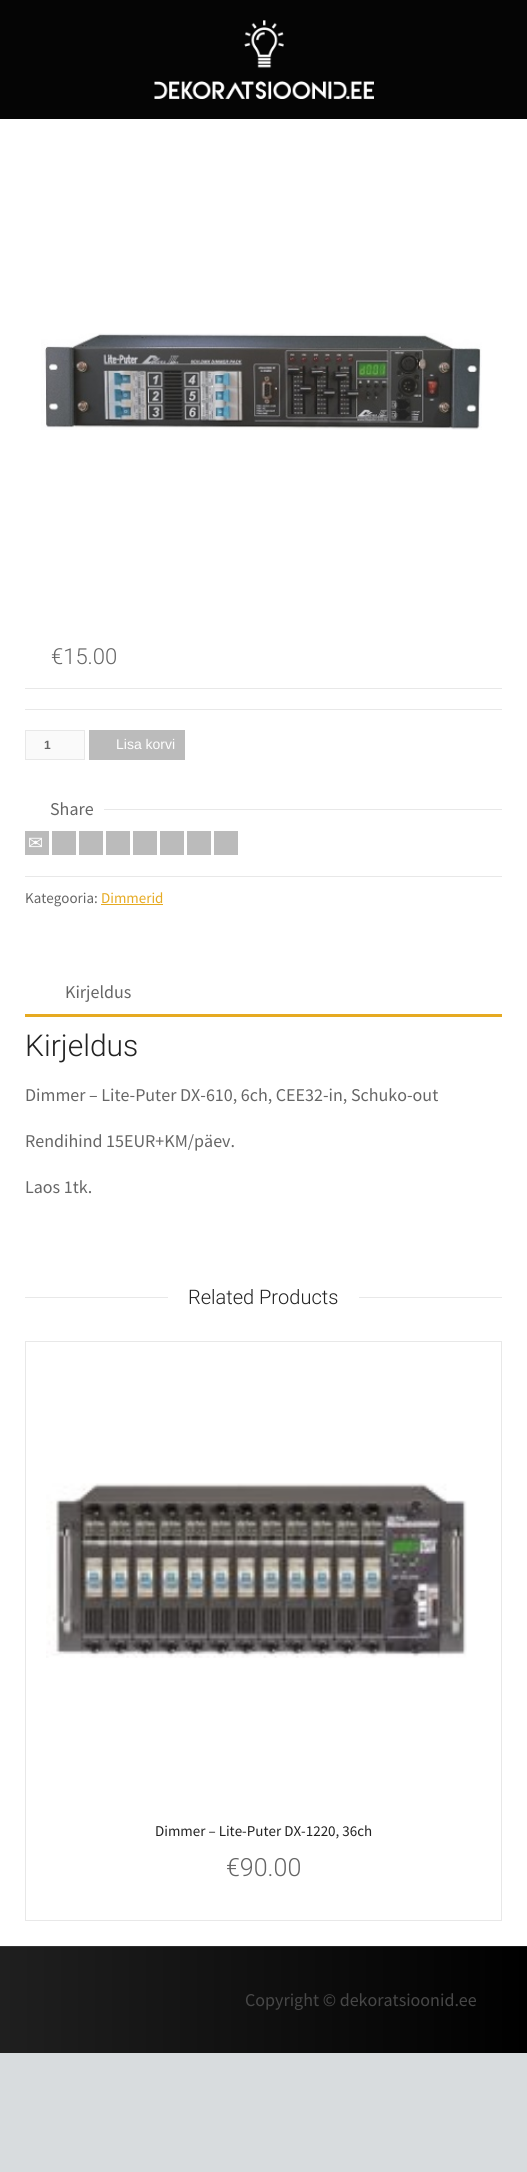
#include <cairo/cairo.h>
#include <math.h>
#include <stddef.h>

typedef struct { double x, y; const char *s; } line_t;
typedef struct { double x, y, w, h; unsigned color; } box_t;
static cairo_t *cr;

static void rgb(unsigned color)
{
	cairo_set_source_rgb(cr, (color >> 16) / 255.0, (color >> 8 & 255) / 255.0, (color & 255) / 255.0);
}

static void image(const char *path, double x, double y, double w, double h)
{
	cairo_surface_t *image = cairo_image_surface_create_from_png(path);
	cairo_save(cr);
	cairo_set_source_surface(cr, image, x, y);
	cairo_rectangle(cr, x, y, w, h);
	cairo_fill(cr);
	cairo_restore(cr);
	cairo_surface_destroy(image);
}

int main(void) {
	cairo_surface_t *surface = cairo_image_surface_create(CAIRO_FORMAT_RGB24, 527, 2172);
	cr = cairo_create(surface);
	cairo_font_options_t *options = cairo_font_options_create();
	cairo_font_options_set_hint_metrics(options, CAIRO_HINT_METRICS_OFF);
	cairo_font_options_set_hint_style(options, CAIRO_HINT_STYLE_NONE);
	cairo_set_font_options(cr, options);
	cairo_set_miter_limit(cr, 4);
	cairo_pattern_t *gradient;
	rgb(0xd8dcde);
	cairo_paint(cr);
	rgb(0x050505);
	cairo_rectangle(cr, 0, 0, 527, 119);
	cairo_fill(cr);
	image("img/1.png", 154, 20, 220, 79);
	rgb(0xffffff);
	cairo_rectangle(cr, 0, 119, 527, 1827);
	cairo_fill(cr);
	image("img/2.png", 41, 333, 441, 97);
	rgb(0xe8e8e8);
	cairo_rectangle(cr, 25, 688, 477, 1);
	cairo_fill(cr);
	cairo_rectangle(cr, 25, 709, 477, 1);
	cairo_fill(cr);
	rgb(0xfafafa);
	cairo_rectangle(cr, 25.5, 730.5, 59, 29);
	cairo_fill_preserve(cr);
	rgb(0xe8e8e8);
	cairo_set_line_width(cr, 1);
	cairo_stroke(cr);
	{
		static const box_t items[] = {
			{89, 730, 96, 30, 0xbbbbbb},
			{104, 809, 398, 1, 0xe8e8e8},
			{25, 831, 24, 24, 0xbbbbbb},
			{52, 831, 24, 24, 0xbbbbbb},
			{79, 831, 24, 24, 0xbbbbbb},
			{106, 831, 24, 24, 0xbbbbbb},
			{133, 831, 24, 24, 0xbbbbbb},
			{160, 831, 24, 24, 0xbbbbbb},
			{187, 831, 24, 24, 0xbbbbbb},
			{214, 831, 24, 24, 0xbbbbbb},
			{25, 876, 477, 1, 0xe8e8e8},
			{101, 904, 62, 1, 0xe6aa21},
			{25, 1014, 477, 3, 0xe6aa21},
			{25, 1297, 143, 1, 0xe8e8e8},
			{359, 1297, 143, 1, 0xe8e8e8},
		};
		for (size_t i = 0; i < sizeof items / sizeof *items; i++) {
			rgb(items[i].color);
			cairo_rectangle(cr, items[i].x, items[i].y, items[i].w, items[i].h);
			cairo_fill(cr);
		}
	}
	cairo_rectangle(cr, 25.5, 1341.5, 476, 579);
	cairo_stroke(cr);
	image("img/3.png", 46, 1483, 421, 175);
	gradient = cairo_pattern_create_linear(527, 2000, 0, 2000);
	cairo_pattern_add_color_stop_rgba(gradient, 0, 0, 0, 0, 1);
	cairo_pattern_add_color_stop_rgba(gradient, 1, 0.122, 0.122, 0.122, 1);
	cairo_set_source(cr, gradient);
	cairo_pattern_destroy(gradient);
	cairo_rectangle(cr, 0, 1947, 527, 106);
	cairo_fill(cr);
	gradient = cairo_pattern_create_linear(527, 2000, 0, 2000);
	cairo_pattern_add_color_stop_rgba(gradient, 0, 0.102, 0.102, 0.102, 1);
	cairo_pattern_add_color_stop_rgba(gradient, 1, 0.208, 0.208, 0.208, 1);
	cairo_set_source(cr, gradient);
	cairo_pattern_destroy(gradient);
	cairo_rectangle(cr, 0, 1946, 527, 1);
	cairo_fill(cr);
	cairo_select_font_face(cr, "Roboto Light", CAIRO_FONT_SLANT_NORMAL, CAIRO_FONT_WEIGHT_NORMAL);
	cairo_set_font_size(cr, 22);
	rgb(0x666666);
	cairo_move_to(cr, 51, 664);
	cairo_show_text(cr, "€15.00");
	cairo_select_font_face(cr, "Liberation Sans", CAIRO_FONT_SLANT_NORMAL, CAIRO_FONT_WEIGHT_BOLD);
	cairo_set_font_size(cr, 12);
	cairo_move_to(cr, 44, 749);
	cairo_show_text(cr, "1");
	cairo_select_font_face(cr, "Liberation Sans", CAIRO_FONT_SLANT_NORMAL, CAIRO_FONT_WEIGHT_NORMAL);
	cairo_set_font_size(cr, 14);
	rgb(0xffffff);
	cairo_move_to(cr, 116, 749);
	cairo_show_text(cr, "Lisa korvi");
	cairo_select_font_face(cr, "Source Sans Pro", CAIRO_FONT_SLANT_NORMAL, CAIRO_FONT_WEIGHT_NORMAL);
	cairo_set_font_size(cr, 18);
	rgb(0x666666);
	cairo_move_to(cr, 50, 815);
	cairo_show_text(cr, "Share");
	cairo_select_font_face(cr, "DejaVu Sans", CAIRO_FONT_SLANT_NORMAL, CAIRO_FONT_WEIGHT_NORMAL);
	rgb(0xffffff);
	cairo_move_to(cr, 28, 849);
	cairo_show_text(cr, "✉");
	cairo_select_font_face(cr, "Source Sans Pro", CAIRO_FONT_SLANT_NORMAL, CAIRO_FONT_WEIGHT_NORMAL);
	cairo_set_font_size(cr, 15);
	rgb(0x666666);
	cairo_move_to(cr, 25, 903);
	cairo_show_text(cr, "Kategooria:");
	rgb(0xe6aa21);
	cairo_move_to(cr, 101, 903);
	cairo_show_text(cr, "Dimmerid");
	cairo_set_font_size(cr, 18);
	rgb(0x666666);
	cairo_move_to(cr, 65, 998);
	cairo_show_text(cr, "Kirjeldus");
	cairo_select_font_face(cr, "Roboto Light", CAIRO_FONT_SLANT_NORMAL, CAIRO_FONT_WEIGHT_NORMAL);
	cairo_set_font_size(cr, 30);
	rgb(0x222222);
	cairo_move_to(cr, 25, 1056);
	cairo_show_text(cr, "Kirjeldus");
	cairo_select_font_face(cr, "Source Sans Pro", CAIRO_FONT_SLANT_NORMAL, CAIRO_FONT_WEIGHT_NORMAL);
	cairo_set_font_size(cr, 18);
	rgb(0x666666);
	{
		static const line_t items[] = {
			{25, 1101, "Dimmer – Lite-Puter DX-610, 6ch, CEE32-in, Schuko-out"},
			{25, 1147, "Rendihind 15EUR+KM/päev."},
			{25, 1193, "Laos 1tk."},
		};
		for (size_t i = 0; i < sizeof items / sizeof *items; i++) {
			cairo_move_to(cr, items[i].x, items[i].y);
			cairo_show_text(cr, items[i].s);
		}
	}
	cairo_select_font_face(cr, "Roboto Light", CAIRO_FONT_SLANT_NORMAL, CAIRO_FONT_WEIGHT_NORMAL);
	cairo_set_font_size(cr, 20);
	rgb(0x222222);
	cairo_move_to(cr, 188, 1304);
	cairo_show_text(cr, "Related Products");
	cairo_select_font_face(cr, "Source Sans Pro", CAIRO_FONT_SLANT_NORMAL, CAIRO_FONT_WEIGHT_NORMAL);
	cairo_set_font_size(cr, 15);
	cairo_move_to(cr, 155, 1836);
	cairo_show_text(cr, "Dimmer – Lite-Puter DX-1220, 36ch");
	cairo_select_font_face(cr, "Roboto Light", CAIRO_FONT_SLANT_NORMAL, CAIRO_FONT_WEIGHT_NORMAL);
	cairo_set_font_size(cr, 25);
	rgb(0x666666);
	cairo_move_to(cr, 226, 1876);
	cairo_show_text(cr, "€90.00");
	cairo_select_font_face(cr, "Source Sans Pro", CAIRO_FONT_SLANT_NORMAL, CAIRO_FONT_WEIGHT_NORMAL);
	cairo_set_font_size(cr, 18);
	rgb(0x474747);
	cairo_move_to(cr, 245, 2006);
	cairo_show_text(cr, "Copyright © dekoratsioonid.ee");
	cairo_surface_write_to_png(surface, "page.png");
	cairo_font_options_destroy(options);
	cairo_destroy(cr);
	cairo_surface_destroy(surface);
	return 0;
}
